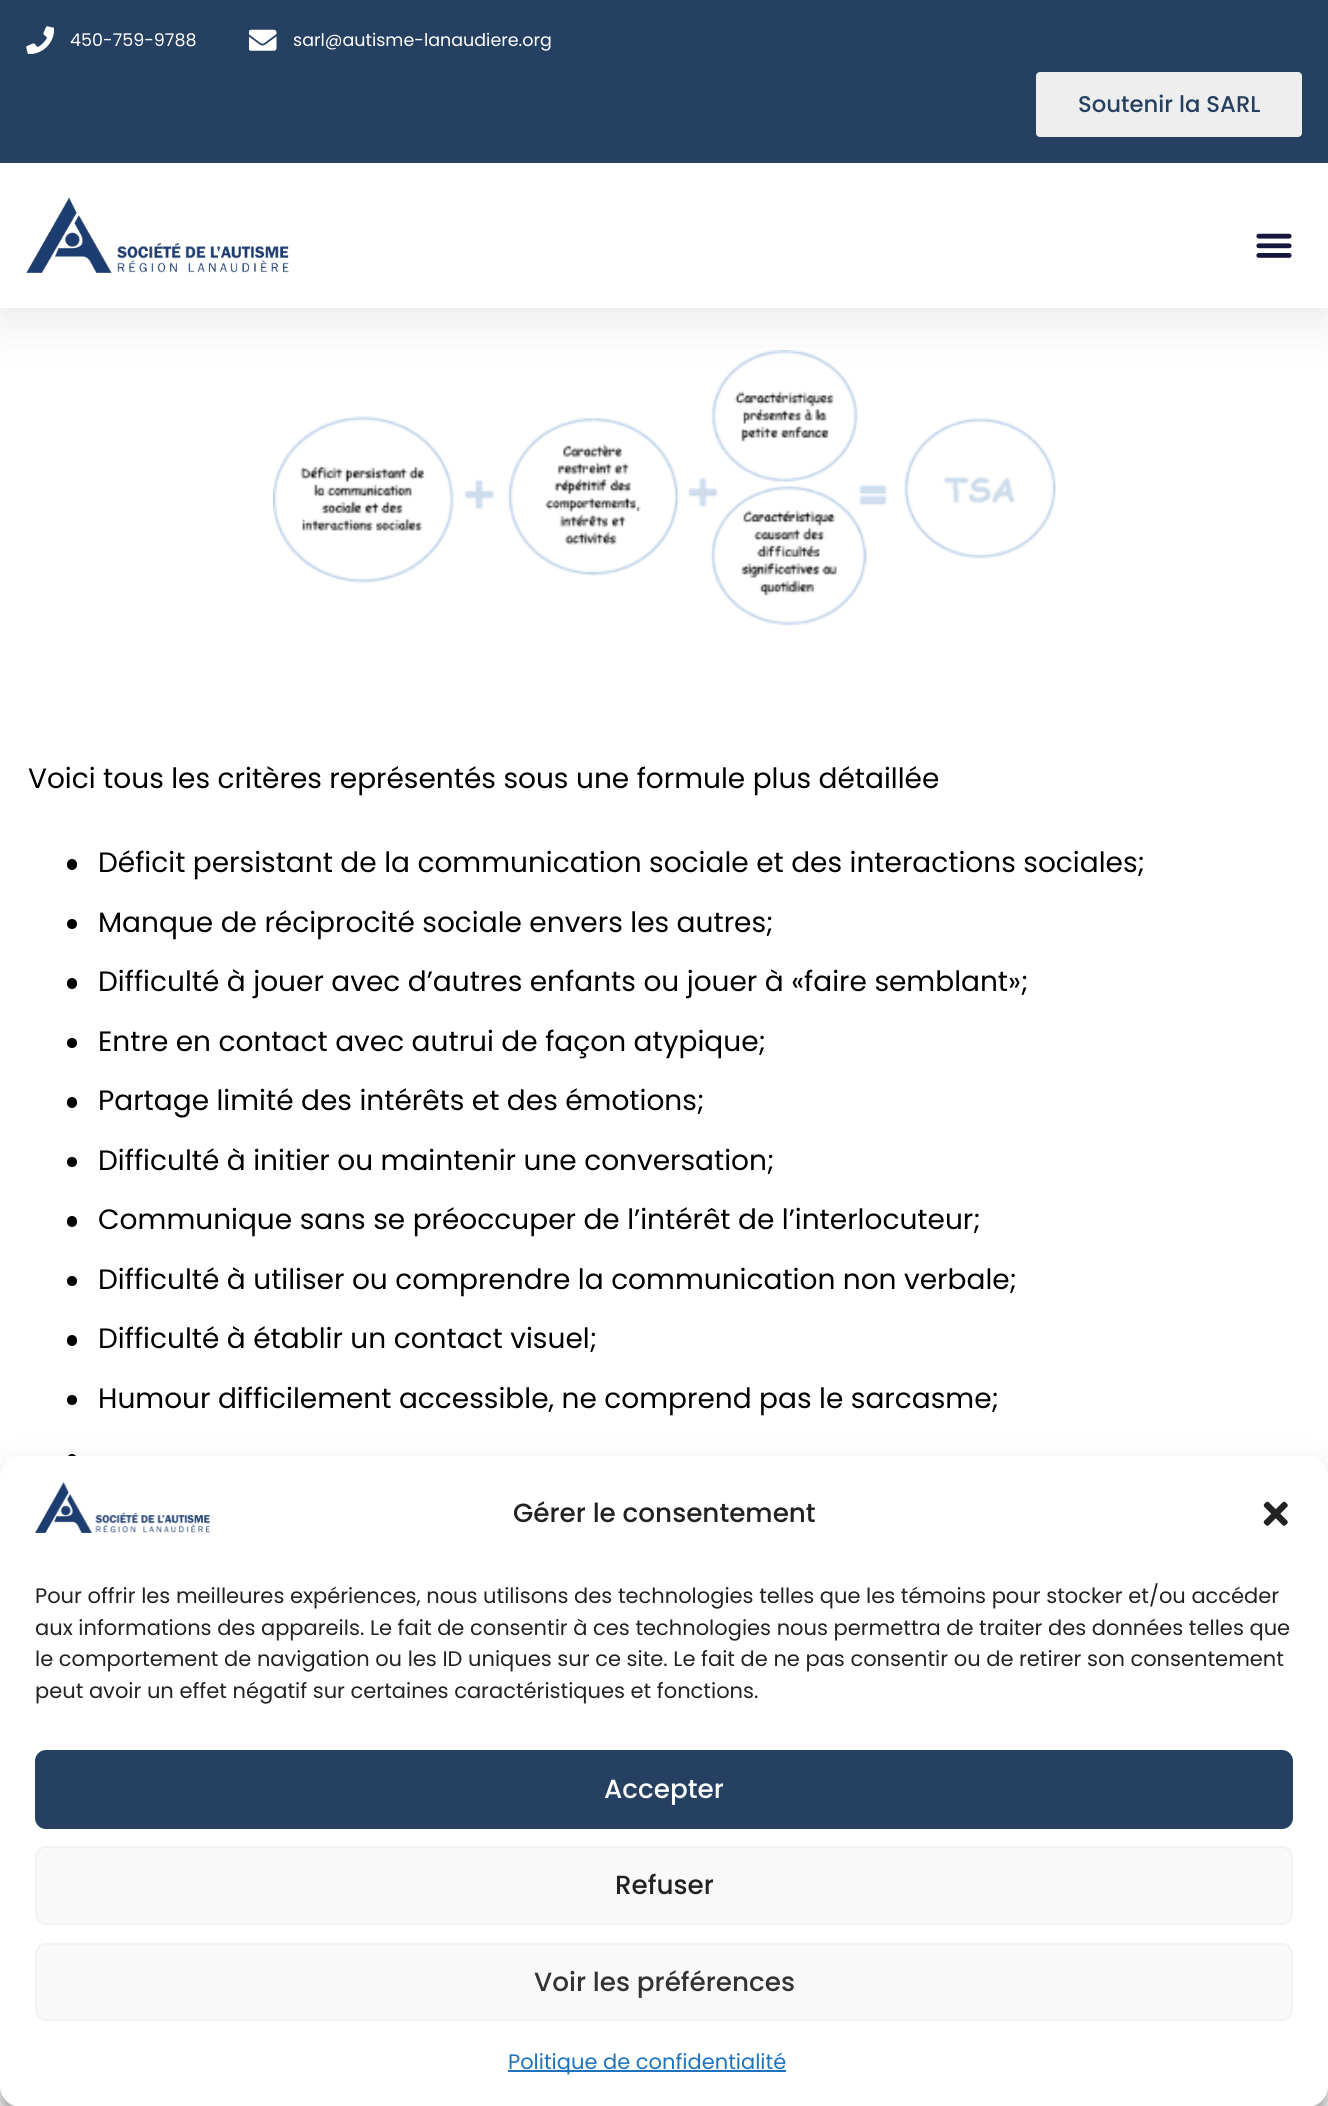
#include <cairo/cairo.h>
#include <math.h>
#include <stddef.h>

typedef struct { double x, y; const char *s; } line_t;
static cairo_t *cr;

static void rgb(unsigned color)
{
	cairo_set_source_rgb(cr, (color >> 16) / 255.0, (color >> 8 & 255) / 255.0, (color & 255) / 255.0);
}

static void rrect(double x, double y, double w, double h, double r)
{
	cairo_new_sub_path(cr);
	cairo_arc(cr, x + w - r, y + h - r, r, 0, M_PI / 2);
	cairo_arc(cr, x + r, y + h - r, r, M_PI / 2, M_PI);
	cairo_arc(cr, x + r, y + r, r, M_PI, 1.5 * M_PI);
	cairo_arc(cr, x + w - r, y + r, r, 1.5 * M_PI, 2 * M_PI);
	cairo_close_path(cr);
}

static void soft_shadow(double x, double y, double w, double h, double r, double blur, double alpha)
{
	cairo_push_group_with_content(cr, CAIRO_CONTENT_ALPHA);
	cairo_set_operator(cr, CAIRO_OPERATOR_SOURCE);
	for (int i = 15; i >= -15 && fmin(w, h) + blur * i / 3 > 0; i -= 2) {
		double e = blur * i / 6;
		cairo_set_source_rgba(cr, 0, 0, 0, alpha * erfc((i - 1) / 8.5) / 2);
		rrect(x - e, y - e, w + 2 * e, h + 2 * e, fmax(0, fmin(r + e + blur * .6, fmin(w, h) / 2 + e)));
		cairo_fill(cr);
	}
	cairo_pattern_t *soft = cairo_pop_group(cr);
	cairo_mask(cr, soft);
	cairo_pattern_destroy(soft);
}

static void image(const char *path, double x, double y, double w, double h)
{
	cairo_surface_t *image = cairo_image_surface_create_from_png(path);
	cairo_save(cr);
	cairo_set_source_surface(cr, image, x, y);
	cairo_rectangle(cr, x, y, w, h);
	cairo_fill(cr);
	cairo_restore(cr);
	cairo_surface_destroy(image);
}

int main(void) {
	cairo_surface_t *surface = cairo_image_surface_create(CAIRO_FORMAT_RGB24, 1328, 2106);
	cr = cairo_create(surface);
	cairo_font_options_t *options = cairo_font_options_create();
	cairo_font_options_set_hint_metrics(options, CAIRO_HINT_METRICS_OFF);
	cairo_font_options_set_hint_style(options, CAIRO_HINT_STYLE_NONE);
	cairo_set_font_options(cr, options);
	cairo_set_miter_limit(cr, 4);
	rgb(0xffffff);
	cairo_paint(cr);
	image("img/5.png", 273, 350, 783, 276);
	rgb(0x000000);
	soft_shadow(0, 9, 1328, 308, 0, 26, 0.1);
	rgb(0x264061);
	cairo_rectangle(cr, 0, 0, 1328, 163);
	cairo_fill(cr);
	image("img/1.png", 26, 26, 28, 28);
	image("img/2.png", 249, 29, 28, 22);
	rgb(0xeeeeee);
	rrect(1036, 72, 266, 65, 4);
	cairo_fill(cr);
	rgb(0xffffff);
	cairo_rectangle(cr, 0, 163, 1328, 145);
	cairo_fill(cr);
	image("img/3.png", 26, 197, 263, 76);
	image("img/4.png", 1256, 233, 36, 25);
	rgb(0x000000);
	rrect(67, 859, 10, 11, 5);
	cairo_fill(cr);
	cairo_arc(cr, 72, 924, 5, 0, 2 * M_PI);
	cairo_fill(cr);
	rrect(67, 978, 10, 11, 5);
	cairo_fill(cr);
	cairo_arc(cr, 72, 1043, 5, 0, 2 * M_PI);
	cairo_fill(cr);
	rrect(67, 1097, 10, 11, 5);
	cairo_fill(cr);
	cairo_arc(cr, 72, 1162, 5, 0, 2 * M_PI);
	cairo_fill(cr);
	rrect(67, 1216, 10, 11, 5);
	cairo_fill(cr);
	cairo_arc(cr, 72, 1281, 5, 0, 2 * M_PI);
	cairo_fill(cr);
	rrect(67, 1335, 10, 11, 5);
	cairo_fill(cr);
	cairo_arc(cr, 72, 1400, 5, 0, 2 * M_PI);
	cairo_fill(cr);
	rrect(67, 1454, 10, 11, 5);
	cairo_fill(cr);
	rgb(0x000000);
	soft_shadow(0, 1467, 1328, 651, 21, 5, 0.23);
	soft_shadow(0, 1474, 1328, 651, 21, 17.5, 0.19);
	rgb(0xffffff);
	rrect(0, 1456, 1328, 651, 21);
	cairo_fill(cr);
	image("img/6.png", 35, 1482, 175, 51);
	image("img/7.png", 1263, 1501, 25, 25);
	rgb(0x264061);
	rrect(36, 1751, 1256, 77, 10);
	cairo_fill_preserve(cr);
	cairo_stroke(cr);
	rgb(0xf9f9f9);
	rrect(36, 1847, 1256, 77, 10);
	cairo_fill_preserve(cr);
	rgb(0xf2f2f2);
	cairo_stroke(cr);
	rgb(0xf9f9f9);
	rrect(36, 1944, 1256, 76, 10);
	cairo_fill_preserve(cr);
	rgb(0xf2f2f2);
	cairo_stroke(cr);
	rgb(0x1e73be);
	cairo_rectangle(cr, 508, 2070, 278, 2);
	cairo_fill(cr);
	cairo_select_font_face(cr, "Poppins", CAIRO_FONT_SLANT_NORMAL, CAIRO_FONT_WEIGHT_NORMAL);
	cairo_set_font_size(cr, 17.5);
	rgb(0xffffff);
	cairo_move_to(cr, 70, 46);
	cairo_show_text(cr, "450-759-9788");
	cairo_move_to(cr, 293, 46);
	cairo_show_text(cr, "sarl@autisme-lanaudiere.org");
	cairo_select_font_face(cr, "Poppins Medium", CAIRO_FONT_SLANT_NORMAL, CAIRO_FONT_WEIGHT_NORMAL);
	cairo_set_font_size(cr, 22.75);
	rgb(0x264061);
	cairo_move_to(cr, 1078, 112);
	cairo_show_text(cr, "Soutenir la SARL");
	cairo_select_font_face(cr, "Poppins", CAIRO_FONT_SLANT_NORMAL, CAIRO_FONT_WEIGHT_NORMAL);
	cairo_set_font_size(cr, 28);
	rgb(0x000000);
	{
		static const line_t items[] = {
			{28, 788, "Voici tous les critères représentés sous une formule plus détaillée"},
			{98, 872, "Déficit persistant de la communication sociale et des interactions sociales;"},
			{98, 932, "Manque de réciprocité sociale envers les autres;"},
			{98, 991, "Difficulté à jouer avec d’autres enfants ou jouer à «faire semblant»;"},
			{98, 1051, "Entre en contact avec autrui de façon atypique;"},
			{98, 1110, "Partage limité des intérêts et des émotions;"},
			{98, 1170, "Difficulté à initier ou maintenir une conversation;"},
			{98, 1229, "Communique sans se préoccuper de l’intérêt de l’interlocuteur;"},
			{98, 1289, "Difficulté à utiliser ou comprendre la communication non verbale;"},
			{98, 1348, "Difficulté à établir un contact visuel;"},
			{98, 1408, "Humour difficilement accessible, ne comprend pas le sarcasme;"},
		};
		for (size_t i = 0; i < sizeof items / sizeof *items; i++) {
			cairo_move_to(cr, items[i].x, items[i].y);
			cairo_show_text(cr, items[i].s);
		}
	}
	cairo_select_font_face(cr, "Poppins Medium", CAIRO_FONT_SLANT_NORMAL, CAIRO_FONT_WEIGHT_NORMAL);
	cairo_set_font_size(cr, 26.25);
	rgb(0x222222);
	cairo_move_to(cr, 513, 1522);
	cairo_show_text(cr, "Gérer le consentement");
	cairo_select_font_face(cr, "Poppins", CAIRO_FONT_SLANT_NORMAL, CAIRO_FONT_WEIGHT_NORMAL);
	cairo_set_font_size(cr, 21);
	{
		static const line_t items[] = {
			{35, 1603, "Pour offrir les meilleures expériences, nous utilisons des technologies telles que les témoins pour stocker et/ou accéder"},
			{35, 1635, "aux informations des appareils. Le fait de consentir à ces technologies nous permettra de traiter des données telles que"},
			{35, 1666, "le comportement de navigation ou les ID uniques sur ce site. Le fait de ne pas consentir ou de retirer son consentement"},
			{35, 1698, "peut avoir un effet négatif sur certaines caractéristiques et fonctions."},
		};
		for (size_t i = 0; i < sizeof items / sizeof *items; i++) {
			cairo_move_to(cr, items[i].x, items[i].y);
			cairo_show_text(cr, items[i].s);
		}
	}
	cairo_select_font_face(cr, "Poppins Medium", CAIRO_FONT_SLANT_NORMAL, CAIRO_FONT_WEIGHT_NORMAL);
	cairo_set_font_size(cr, 26.25);
	rgb(0xffffff);
	cairo_move_to(cr, 604, 1798);
	cairo_show_text(cr, "Accepter");
	rgb(0x222222);
	cairo_move_to(cr, 615, 1894);
	cairo_show_text(cr, "Refuser");
	rgb(0x333333);
	cairo_move_to(cr, 534, 1991);
	cairo_show_text(cr, "Voir les préférences");
	cairo_select_font_face(cr, "Poppins", CAIRO_FONT_SLANT_NORMAL, CAIRO_FONT_WEIGHT_NORMAL);
	cairo_set_font_size(cr, 21);
	rgb(0x1e73be);
	cairo_move_to(cr, 508, 2069);
	cairo_show_text(cr, "Politique de confidentialité");
	cairo_surface_write_to_png(surface, "page.png");
	cairo_font_options_destroy(options);
	cairo_destroy(cr);
	cairo_surface_destroy(surface);
	return 0;
}
